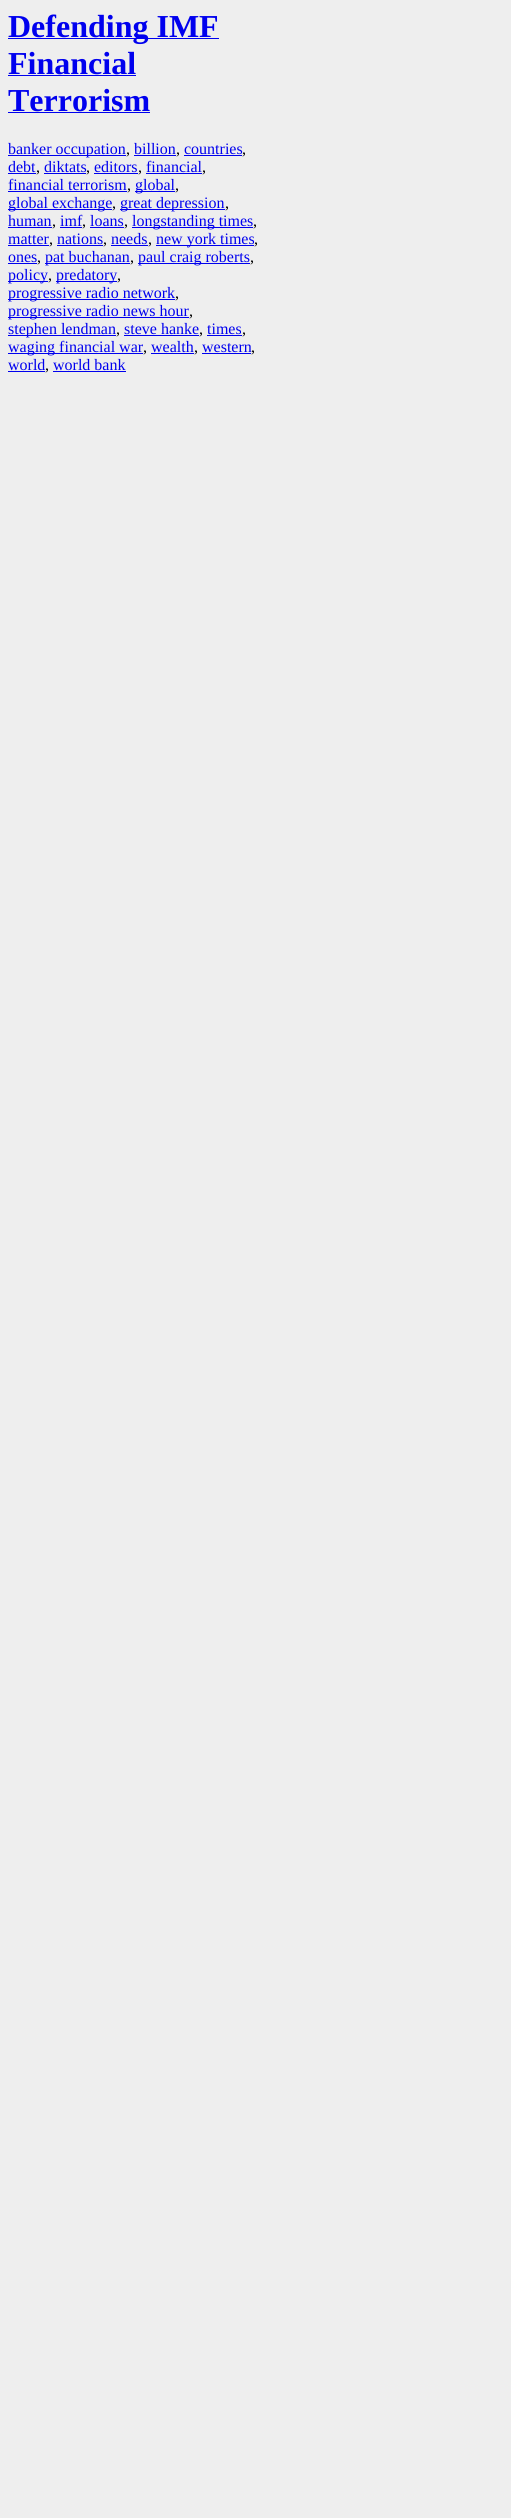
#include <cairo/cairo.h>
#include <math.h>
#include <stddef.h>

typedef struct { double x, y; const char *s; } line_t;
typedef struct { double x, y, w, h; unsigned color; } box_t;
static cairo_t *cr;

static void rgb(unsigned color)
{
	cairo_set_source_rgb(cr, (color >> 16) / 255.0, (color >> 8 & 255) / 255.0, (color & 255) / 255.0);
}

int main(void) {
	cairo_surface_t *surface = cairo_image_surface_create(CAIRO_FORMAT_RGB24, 511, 2518);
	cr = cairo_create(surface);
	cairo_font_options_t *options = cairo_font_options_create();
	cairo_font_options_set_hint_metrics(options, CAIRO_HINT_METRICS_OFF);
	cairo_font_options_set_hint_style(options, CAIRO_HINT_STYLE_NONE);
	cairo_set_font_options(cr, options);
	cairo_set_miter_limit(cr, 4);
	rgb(0xeeeeee);
	cairo_paint(cr);
	{
		static const box_t items[] = {
			{8, 38, 211, 1, 0x0000ee},
			{8, 75, 128, 1, 0x0000ee},
			{8, 112, 142, 1, 0x0000ee},
			{8, 155, 118, 1, 0x0000ee},
			{134, 155, 42, 1, 0x0000ee},
			{184, 155, 58, 1, 0x0000ee},
			{8, 173, 28, 1, 0x0000ee},
			{44, 173, 42, 1, 0x0000ee},
			{94, 173, 44, 1, 0x0000ee},
			{146, 173, 56, 1, 0x0000ee},
			{8, 191, 119, 1, 0x0000ee},
			{135, 191, 40, 1, 0x0000ee},
			{8, 209, 104, 1, 0x0000ee},
			{120, 209, 105, 1, 0x0000ee},
			{8, 227, 44, 1, 0x0000ee},
			{60, 227, 22, 1, 0x0000ee},
			{90, 227, 34, 1, 0x0000ee},
			{132, 227, 121, 1, 0x0000ee},
			{8, 245, 41, 1, 0x0000ee},
			{57, 245, 46, 1, 0x0000ee},
			{111, 245, 37, 1, 0x0000ee},
			{156, 245, 98, 1, 0x0000ee},
			{8, 263, 29, 1, 0x0000ee},
			{45, 263, 85, 1, 0x0000ee},
			{138, 263, 112, 1, 0x0000ee},
			{8, 281, 40, 1, 0x0000ee},
			{56, 281, 61, 1, 0x0000ee},
			{8, 299, 167, 1, 0x0000ee},
			{8, 317, 181, 1, 0x0000ee},
			{8, 335, 108, 1, 0x0000ee},
			{124, 335, 75, 1, 0x0000ee},
			{207, 335, 35, 1, 0x0000ee},
			{8, 353, 135, 1, 0x0000ee},
			{151, 353, 43, 1, 0x0000ee},
			{202, 353, 49, 1, 0x0000ee},
			{8, 371, 37, 1, 0x0000ee},
			{53, 371, 73, 1, 0x0000ee},
		};
		for (size_t i = 0; i < sizeof items / sizeof *items; i++) {
			rgb(items[i].color);
			cairo_rectangle(cr, items[i].x, items[i].y, items[i].w, items[i].h);
			cairo_fill(cr);
		}
	}
	cairo_select_font_face(cr, "Liberation Serif", CAIRO_FONT_SLANT_NORMAL, CAIRO_FONT_WEIGHT_BOLD);
	cairo_set_font_size(cr, 32);
	{
		static const line_t items[] = {
			{8, 37, "Defending IMF"},
			{8, 74, "Financial"},
			{8, 111, "Terrorism"},
		};
		for (size_t i = 0; i < sizeof items / sizeof *items; i++) {
			cairo_move_to(cr, items[i].x, items[i].y);
			cairo_show_text(cr, items[i].s);
		}
	}
	cairo_select_font_face(cr, "Liberation Serif", CAIRO_FONT_SLANT_NORMAL, CAIRO_FONT_WEIGHT_NORMAL);
	cairo_set_font_size(cr, 16);
	cairo_move_to(cr, 8, 154);
	cairo_show_text(cr, "banker occupation");
	rgb(0x000000);
	cairo_move_to(cr, 126, 154);
	cairo_show_text(cr, ",");
	rgb(0x0000ee);
	cairo_move_to(cr, 134, 154);
	cairo_show_text(cr, "billion");
	rgb(0x000000);
	cairo_move_to(cr, 176, 154);
	cairo_show_text(cr, ",");
	rgb(0x0000ee);
	cairo_move_to(cr, 184, 154);
	cairo_show_text(cr, "countries");
	rgb(0x000000);
	cairo_move_to(cr, 242, 154);
	cairo_show_text(cr, ",");
	rgb(0x0000ee);
	cairo_move_to(cr, 8, 172);
	cairo_show_text(cr, "debt");
	rgb(0x000000);
	cairo_move_to(cr, 36, 172);
	cairo_show_text(cr, ",");
	rgb(0x0000ee);
	cairo_move_to(cr, 44, 172);
	cairo_show_text(cr, "diktats");
	rgb(0x000000);
	cairo_move_to(cr, 86, 172);
	cairo_show_text(cr, ",");
	rgb(0x0000ee);
	cairo_move_to(cr, 94, 172);
	cairo_show_text(cr, "editors");
	rgb(0x000000);
	cairo_move_to(cr, 138, 172);
	cairo_show_text(cr, ",");
	rgb(0x0000ee);
	cairo_move_to(cr, 146, 172);
	cairo_show_text(cr, "financial");
	rgb(0x000000);
	cairo_move_to(cr, 202, 172);
	cairo_show_text(cr, ",");
	rgb(0x0000ee);
	cairo_move_to(cr, 8, 190);
	cairo_show_text(cr, "financial terrorism");
	rgb(0x000000);
	cairo_move_to(cr, 127, 190);
	cairo_show_text(cr, ",");
	rgb(0x0000ee);
	cairo_move_to(cr, 135, 190);
	cairo_show_text(cr, "global");
	rgb(0x000000);
	cairo_move_to(cr, 175, 190);
	cairo_show_text(cr, ",");
	rgb(0x0000ee);
	cairo_move_to(cr, 8, 208);
	cairo_show_text(cr, "global exchange");
	rgb(0x000000);
	cairo_move_to(cr, 112, 208);
	cairo_show_text(cr, ",");
	rgb(0x0000ee);
	cairo_move_to(cr, 120, 208);
	cairo_show_text(cr, "great depression");
	rgb(0x000000);
	cairo_move_to(cr, 225, 208);
	cairo_show_text(cr, ",");
	rgb(0x0000ee);
	cairo_move_to(cr, 8, 226);
	cairo_show_text(cr, "human");
	rgb(0x000000);
	cairo_move_to(cr, 52, 226);
	cairo_show_text(cr, ",");
	rgb(0x0000ee);
	cairo_move_to(cr, 60, 226);
	cairo_show_text(cr, "imf");
	rgb(0x000000);
	cairo_move_to(cr, 82, 226);
	cairo_show_text(cr, ",");
	rgb(0x0000ee);
	cairo_move_to(cr, 90, 226);
	cairo_show_text(cr, "loans");
	rgb(0x000000);
	cairo_move_to(cr, 124, 226);
	cairo_show_text(cr, ",");
	rgb(0x0000ee);
	cairo_move_to(cr, 132, 226);
	cairo_show_text(cr, "longstanding times");
	rgb(0x000000);
	cairo_move_to(cr, 253, 226);
	cairo_show_text(cr, ",");
	rgb(0x0000ee);
	cairo_move_to(cr, 8, 244);
	cairo_show_text(cr, "matter");
	rgb(0x000000);
	cairo_move_to(cr, 49, 244);
	cairo_show_text(cr, ",");
	rgb(0x0000ee);
	cairo_move_to(cr, 57, 244);
	cairo_show_text(cr, "nations");
	rgb(0x000000);
	cairo_move_to(cr, 103, 244);
	cairo_show_text(cr, ",");
	rgb(0x0000ee);
	cairo_move_to(cr, 111, 244);
	cairo_show_text(cr, "needs");
	rgb(0x000000);
	cairo_move_to(cr, 148, 244);
	cairo_show_text(cr, ",");
	rgb(0x0000ee);
	cairo_move_to(cr, 156, 244);
	cairo_show_text(cr, "new york times");
	rgb(0x000000);
	cairo_move_to(cr, 254, 244);
	cairo_show_text(cr, ",");
	rgb(0x0000ee);
	cairo_move_to(cr, 8, 262);
	cairo_show_text(cr, "ones");
	rgb(0x000000);
	cairo_move_to(cr, 37, 262);
	cairo_show_text(cr, ",");
	rgb(0x0000ee);
	cairo_move_to(cr, 45, 262);
	cairo_show_text(cr, "pat buchanan");
	rgb(0x000000);
	cairo_move_to(cr, 130, 262);
	cairo_show_text(cr, ",");
	rgb(0x0000ee);
	cairo_move_to(cr, 138, 262);
	cairo_show_text(cr, "paul craig roberts");
	rgb(0x000000);
	cairo_move_to(cr, 250, 262);
	cairo_show_text(cr, ",");
	rgb(0x0000ee);
	cairo_move_to(cr, 8, 280);
	cairo_show_text(cr, "policy");
	rgb(0x000000);
	cairo_move_to(cr, 48, 280);
	cairo_show_text(cr, ",");
	rgb(0x0000ee);
	cairo_move_to(cr, 56, 280);
	cairo_show_text(cr, "predatory");
	rgb(0x000000);
	cairo_move_to(cr, 117, 280);
	cairo_show_text(cr, ",");
	rgb(0x0000ee);
	cairo_move_to(cr, 8, 298);
	cairo_show_text(cr, "progressive radio network");
	rgb(0x000000);
	cairo_move_to(cr, 175, 298);
	cairo_show_text(cr, ",");
	rgb(0x0000ee);
	cairo_move_to(cr, 8, 316);
	cairo_show_text(cr, "progressive radio news hour");
	rgb(0x000000);
	cairo_move_to(cr, 189, 316);
	cairo_show_text(cr, ",");
	rgb(0x0000ee);
	cairo_move_to(cr, 8, 334);
	cairo_show_text(cr, "stephen lendman");
	rgb(0x000000);
	cairo_move_to(cr, 116, 334);
	cairo_show_text(cr, ",");
	rgb(0x0000ee);
	cairo_move_to(cr, 124, 334);
	cairo_show_text(cr, "steve hanke");
	rgb(0x000000);
	cairo_move_to(cr, 199, 334);
	cairo_show_text(cr, ",");
	rgb(0x0000ee);
	cairo_move_to(cr, 207, 334);
	cairo_show_text(cr, "times");
	rgb(0x000000);
	cairo_move_to(cr, 242, 334);
	cairo_show_text(cr, ",");
	rgb(0x0000ee);
	cairo_move_to(cr, 8, 352);
	cairo_show_text(cr, "waging financial war");
	rgb(0x000000);
	cairo_move_to(cr, 143, 352);
	cairo_show_text(cr, ",");
	rgb(0x0000ee);
	cairo_move_to(cr, 151, 352);
	cairo_show_text(cr, "wealth");
	rgb(0x000000);
	cairo_move_to(cr, 194, 352);
	cairo_show_text(cr, ",");
	rgb(0x0000ee);
	cairo_move_to(cr, 202, 352);
	cairo_show_text(cr, "western");
	rgb(0x000000);
	cairo_move_to(cr, 251, 352);
	cairo_show_text(cr, ",");
	rgb(0x0000ee);
	cairo_move_to(cr, 8, 370);
	cairo_show_text(cr, "world");
	rgb(0x000000);
	cairo_move_to(cr, 45, 370);
	cairo_show_text(cr, ",");
	rgb(0x0000ee);
	cairo_move_to(cr, 53, 370);
	cairo_show_text(cr, "world bank");
	cairo_surface_write_to_png(surface, "page.png");
	cairo_font_options_destroy(options);
	cairo_destroy(cr);
	cairo_surface_destroy(surface);
	return 0;
}
